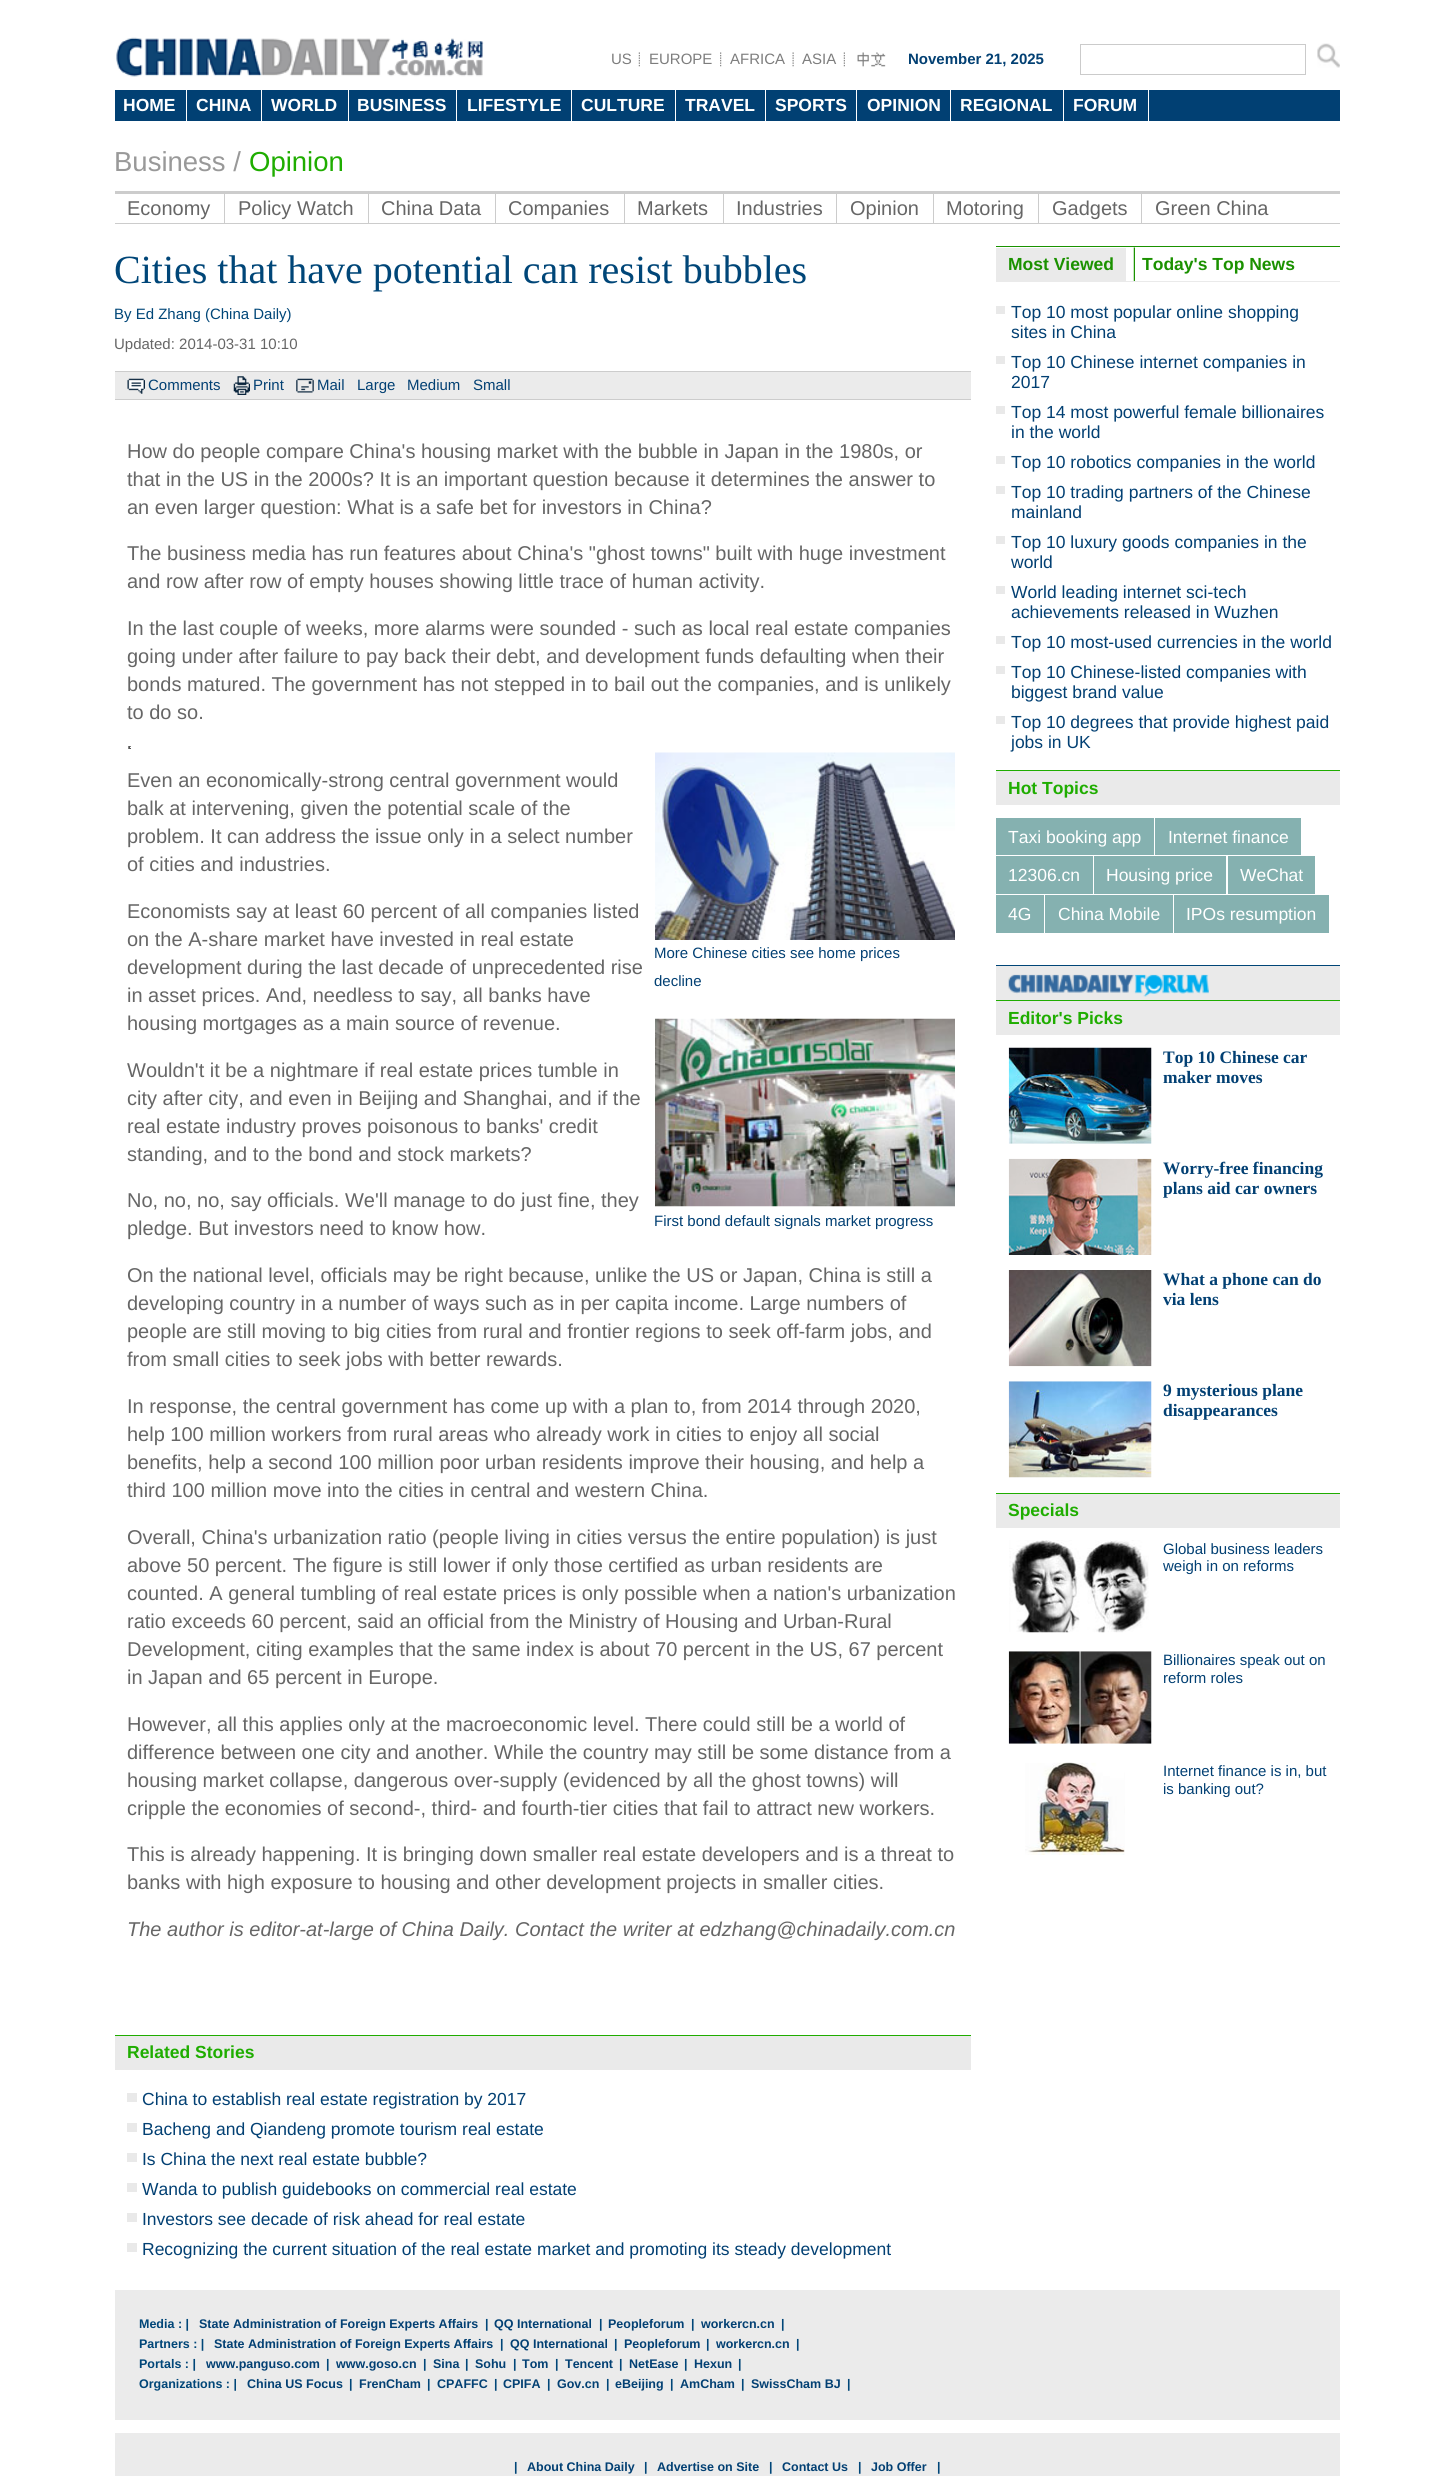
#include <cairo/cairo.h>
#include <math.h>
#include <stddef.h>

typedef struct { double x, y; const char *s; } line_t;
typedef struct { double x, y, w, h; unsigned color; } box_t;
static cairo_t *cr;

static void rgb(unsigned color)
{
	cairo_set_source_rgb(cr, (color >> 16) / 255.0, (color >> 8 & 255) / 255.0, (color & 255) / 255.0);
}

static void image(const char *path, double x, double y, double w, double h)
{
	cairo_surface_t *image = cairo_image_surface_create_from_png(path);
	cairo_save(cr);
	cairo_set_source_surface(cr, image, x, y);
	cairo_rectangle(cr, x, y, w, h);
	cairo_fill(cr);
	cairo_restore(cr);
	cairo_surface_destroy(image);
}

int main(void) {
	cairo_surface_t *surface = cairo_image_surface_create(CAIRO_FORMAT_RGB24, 1453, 2476);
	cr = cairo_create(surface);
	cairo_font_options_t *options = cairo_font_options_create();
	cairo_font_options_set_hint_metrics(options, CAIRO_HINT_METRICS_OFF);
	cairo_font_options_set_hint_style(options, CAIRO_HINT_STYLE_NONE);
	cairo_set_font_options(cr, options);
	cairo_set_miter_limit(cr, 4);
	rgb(0xffffff);
	cairo_paint(cr);
	image("img/1.png", 116, 37, 368, 40);
	image("img/2.png", 638, 52, 2, 15);
	image("img/3.png", 720, 52, 2, 15);
	image("img/4.png", 792, 52, 2, 15);
	image("img/2.png", 843, 52, 2, 15);
	image("img/5.png", 857, 52, 29, 15);
	cairo_rectangle(cr, 1080.5, 44.5, 225, 30);
	rgb(0xcbcbcb);
	cairo_set_line_width(cr, 1);
	cairo_stroke(cr);
	image("img/6.png", 1317, 43, 23, 25);
	{
		static const box_t items[] = {
			{115, 90, 1225, 31, 0x014073},
			{186, 90, 1, 31, 0xffffff},
			{261, 90, 1, 31, 0xffffff},
			{348, 90, 1, 31, 0xffffff},
			{456, 90, 1, 31, 0xffffff},
			{571, 90, 1, 31, 0xffffff},
			{675, 90, 1, 31, 0xffffff},
			{765, 90, 1, 31, 0xffffff},
			{856, 90, 1, 31, 0xffffff},
			{950, 90, 1, 31, 0xffffff},
			{1063, 90, 1, 31, 0xffffff},
			{1148, 90, 1, 31, 0xffffff},
			{115, 191, 1225, 3, 0xcccccc},
			{115, 223, 1225, 1, 0xcccccc},
			{224, 194, 1, 29, 0xcccccc},
			{368, 194, 1, 29, 0xcccccc},
			{495, 194, 1, 29, 0xcccccc},
			{624, 194, 1, 29, 0xcccccc},
			{723, 194, 1, 29, 0xcccccc},
			{836, 194, 1, 29, 0xcccccc},
			{933, 194, 1, 29, 0xcccccc},
			{1038, 194, 1, 29, 0xcccccc},
			{1141, 194, 1, 29, 0xcccccc},
			{115, 372, 856, 27, 0xebebeb},
			{115, 371, 856, 1, 0xcccccc},
			{115, 399, 856, 1, 0xcccccc},
		};
		for (size_t i = 0; i < sizeof items / sizeof *items; i++) {
			rgb(items[i].color);
			cairo_rectangle(cr, items[i].x, items[i].y, items[i].w, items[i].h);
			cairo_fill(cr);
		}
	}
	image("img/7.png", 127, 378, 18, 16);
	image("img/8.png", 233, 376, 17, 19);
	image("img/9.png", 296, 378, 18, 15);
	{
		static const box_t items[] = {
			{128, 746, 3, 1, 0x808080},
			{129, 746, 1, 3, 0x555555},
			{128, 748, 3, 1, 0x555555},
			{128, 746, 1, 3, 0x808080},
		};
		for (size_t i = 0; i < sizeof items / sizeof *items; i++) {
			rgb(items[i].color);
			cairo_rectangle(cr, items[i].x, items[i].y, items[i].w, items[i].h);
			cairo_fill(cr);
		}
	}
	image("img/10.png", 655, 752, 300, 188);
	image("img/11.png", 655, 1018, 300, 189);
	{
		static const box_t items[] = {
			{115, 2036, 856, 34, 0xeaeaea},
			{115, 2035, 856, 1, 0x1fad00},
			{127, 2093, 10, 9, 0xe9e9e9},
			{127, 2123, 10, 9, 0xe9e9e9},
			{127, 2153, 10, 9, 0xe9e9e9},
			{127, 2183, 10, 9, 0xe9e9e9},
			{127, 2213, 10, 9, 0xe9e9e9},
			{127, 2243, 10, 9, 0xe9e9e9},
		};
		for (size_t i = 0; i < sizeof items / sizeof *items; i++) {
			rgb(items[i].color);
			cairo_rectangle(cr, items[i].x, items[i].y, items[i].w, items[i].h);
			cairo_fill(cr);
		}
	}
	image("img/12.png", 1133, 247, 2, 34);
	{
		static const box_t items[] = {
			{996, 246, 344, 1, 0x1a9200},
			{996, 281, 344, 1, 0xeaeaea},
			{996, 248, 130, 33, 0xeaeaea},
			{996, 306, 9, 8, 0xe9e9e9},
			{996, 356, 9, 8, 0xe9e9e9},
			{996, 406, 9, 8, 0xe9e9e9},
			{996, 456, 9, 8, 0xe9e9e9},
			{996, 486, 9, 8, 0xe9e9e9},
			{996, 536, 9, 8, 0xe9e9e9},
			{996, 586, 9, 8, 0xe9e9e9},
			{996, 636, 9, 8, 0xe9e9e9},
			{996, 666, 9, 8, 0xe9e9e9},
			{996, 716, 9, 8, 0xe9e9e9},
			{996, 771, 344, 34, 0xeaeaea},
			{996, 770, 344, 1, 0x1fad00},
			{996, 818, 158, 37, 0x85b1b0},
			{1155, 818, 146, 37, 0x85b1b0},
			{996, 856, 97, 38, 0x85b1b0},
			{1094, 856, 132, 38, 0x85b1b0},
			{1228, 856, 87, 38, 0x85b1b0},
			{996, 895, 48, 38, 0x85b1b0},
			{1045, 895, 128, 38, 0x85b1b0},
			{1174, 895, 155, 38, 0x85b1b0},
			{996, 966, 344, 34, 0xeaeaea},
			{996, 965, 344, 1, 0x004677},
		};
		for (size_t i = 0; i < sizeof items / sizeof *items; i++) {
			rgb(items[i].color);
			cairo_rectangle(cr, items[i].x, items[i].y, items[i].w, items[i].h);
			cairo_fill(cr);
		}
	}
	image("img/13.png", 1008, 974, 201, 23);
	rgb(0xeaeaea);
	cairo_rectangle(cr, 996, 1001, 344, 34);
	cairo_fill(cr);
	rgb(0x1fad00);
	cairo_rectangle(cr, 996, 1000, 344, 1);
	cairo_fill(cr);
	image("img/14.png", 1008, 1047, 144, 97);
	image("img/15.png", 1008, 1158, 144, 97);
	image("img/16.png", 1008, 1270, 144, 97);
	image("img/17.png", 1008, 1381, 144, 97);
	rgb(0xeaeaea);
	cairo_rectangle(cr, 996, 1494, 344, 34);
	cairo_fill(cr);
	rgb(0x1fad00);
	cairo_rectangle(cr, 996, 1493, 344, 1);
	cairo_fill(cr);
	image("img/18.png", 1009, 1540, 140, 93);
	image("img/19.png", 1008, 1651, 144, 93);
	image("img/20.png", 1025, 1762, 100, 93);
	rgb(0xebebeb);
	cairo_rectangle(cr, 115, 2290, 1225, 130);
	cairo_fill(cr);
	cairo_rectangle(cr, 115, 2433, 1225, 43);
	cairo_fill(cr);
	cairo_select_font_face(cr, "Liberation Sans", CAIRO_FONT_SLANT_NORMAL, CAIRO_FONT_WEIGHT_NORMAL);
	cairo_set_font_size(cr, 15);
	rgb(0x7d7d7d);
	{
		static const line_t items[] = {
			{611, 64, "US"},
			{649, 64, "EUROPE"},
			{730, 64, "AFRICA"},
			{802, 64, "ASIA"},
		};
		for (size_t i = 0; i < sizeof items / sizeof *items; i++) {
			cairo_move_to(cr, items[i].x, items[i].y);
			cairo_show_text(cr, items[i].s);
		}
	}
	cairo_select_font_face(cr, "Liberation Sans", CAIRO_FONT_SLANT_NORMAL, CAIRO_FONT_WEIGHT_BOLD);
	rgb(0x024073);
	cairo_move_to(cr, 908, 64);
	cairo_show_text(cr, "November 21, 2025");
	cairo_set_font_size(cr, 17.5);
	rgb(0xffffff);
	{
		static const line_t items[] = {
			{123, 111, "HOME"},
			{196, 111, "CHINA"},
			{271, 111, "WORLD"},
			{357, 111, "BUSINESS"},
			{467, 111, "LIFESTYLE"},
			{581, 111, "CULTURE"},
			{685, 111, "TRAVEL"},
			{775, 111, "SPORTS"},
			{867, 111, "OPINION"},
			{960, 111, "REGIONAL"},
			{1073, 111, "FORUM"},
		};
		for (size_t i = 0; i < sizeof items / sizeof *items; i++) {
			cairo_move_to(cr, items[i].x, items[i].y);
			cairo_show_text(cr, items[i].s);
		}
	}
	cairo_select_font_face(cr, "Liberation Sans", CAIRO_FONT_SLANT_NORMAL, CAIRO_FONT_WEIGHT_NORMAL);
	cairo_set_font_size(cr, 27.5);
	rgb(0x999999);
	cairo_move_to(cr, 114, 171);
	cairo_show_text(cr, "Business /");
	rgb(0x1fad00);
	cairo_move_to(cr, 249, 171);
	cairo_show_text(cr, "Opinion");
	cairo_set_font_size(cr, 20);
	rgb(0x666666);
	{
		static const line_t items[] = {
			{127, 215, "Economy"},
			{238, 215, "Policy Watch"},
			{381, 215, "China Data"},
			{508, 215, "Companies"},
			{637, 215, "Markets"},
			{736, 215, "Industries"},
			{850, 215, "Opinion"},
			{946, 215, "Motoring"},
			{1052, 215, "Gadgets"},
			{1155, 215, "Green China"},
		};
		for (size_t i = 0; i < sizeof items / sizeof *items; i++) {
			cairo_move_to(cr, items[i].x, items[i].y);
			cairo_show_text(cr, items[i].s);
		}
	}
	cairo_select_font_face(cr, "Liberation Serif", CAIRO_FONT_SLANT_NORMAL, CAIRO_FONT_WEIGHT_NORMAL);
	cairo_set_font_size(cr, 40);
	rgb(0x004678);
	cairo_move_to(cr, 114, 283);
	cairo_show_text(cr, "Cities that have potential can resist bubbles");
	cairo_select_font_face(cr, "Liberation Sans", CAIRO_FONT_SLANT_NORMAL, CAIRO_FONT_WEIGHT_NORMAL);
	cairo_set_font_size(cr, 15);
	cairo_move_to(cr, 114, 319);
	cairo_show_text(cr, "By Ed Zhang (China Daily)");
	rgb(0x666666);
	cairo_move_to(cr, 114, 349);
	cairo_show_text(cr, "Updated: 2014-03-31 10:10");
	rgb(0x024073);
	{
		static const line_t items[] = {
			{148, 390, "Comments"},
			{253, 390, "Print"},
			{317, 390, "Mail"},
			{357, 390, "Large"},
			{407, 390, "Medium"},
			{473, 390, "Small"},
		};
		for (size_t i = 0; i < sizeof items / sizeof *items; i++) {
			cairo_move_to(cr, items[i].x, items[i].y);
			cairo_show_text(cr, items[i].s);
		}
	}
	cairo_set_font_size(cr, 20);
	rgb(0x666666);
	{
		static const line_t items[] = {
			{127, 458, "How do people compare China's housing market with the bubble in Japan in the 1980s, or"},
			{127, 486, "that in the US in the 2000s? It is an important question because it determines the answer to"},
			{127, 514, "an even larger question: What is a safe bet for investors in China?"},
			{127, 560, "The business media has run features about China's \"ghost towns\" built with huge investment"},
			{127, 588, "and row after row of empty houses showing little trace of human activity."},
			{127, 635, "In the last couple of weeks, more alarms were sounded - such as local real estate companies"},
			{127, 663, "going under after failure to pay back their debt, and development funds defaulting when their"},
			{127, 691, "bonds matured. The government has not stepped in to bail out the companies, and is unlikely"},
			{127, 719, "to do so."},
			{127, 787, "Even an economically-strong central government would"},
			{127, 815, "balk at intervening, given the potential scale of the"},
			{127, 843, "problem. It can address the issue only in a select number"},
			{127, 871, "of cities and industries."},
			{127, 918, "Economists say at least 60 percent of all companies listed"},
			{127, 946, "on the A-share market have invested in real estate"},
			{127, 974, "development during the last decade of unprecedented rise"},
			{127, 1002, "in asset prices. And, needless to say, all banks have"},
			{127, 1030, "housing mortgages as a main source of revenue."},
		};
		for (size_t i = 0; i < sizeof items / sizeof *items; i++) {
			cairo_move_to(cr, items[i].x, items[i].y);
			cairo_show_text(cr, items[i].s);
		}
	}
	cairo_set_font_size(cr, 15);
	rgb(0x024073);
	{
		static const line_t items[] = {
			{654, 958, "More Chinese cities see home prices"},
			{654, 986, "decline"},
			{654, 1226, "First bond default signals market progress"},
		};
		for (size_t i = 0; i < sizeof items / sizeof *items; i++) {
			cairo_move_to(cr, items[i].x, items[i].y);
			cairo_show_text(cr, items[i].s);
		}
	}
	cairo_set_font_size(cr, 20);
	rgb(0x666666);
	{
		static const line_t items[] = {
			{127, 1077, "Wouldn't it be a nightmare if real estate prices tumble in"},
			{127, 1105, "city after city, and even in Beijing and Shanghai, and if the"},
			{127, 1133, "real estate industry proves poisonous to banks' credit"},
			{127, 1161, "standing, and to the bond and stock markets?"},
			{127, 1207, "No, no, no, say officials. We'll manage to do just fine, they"},
			{127, 1235, "pledge. But investors need to know how."},
			{127, 1282, "On the national level, officials may be right because, unlike the US or Japan, China is still a"},
			{127, 1310, "developing country in a number of ways such as in per capita income. Large numbers of"},
			{127, 1338, "people are still moving to big cities from rural and frontier regions to seek off-farm jobs, and"},
			{127, 1366, "from small cities to seek jobs with better rewards."},
			{127, 1413, "In response, the central government has come up with a plan to, from 2014 through 2020,"},
			{127, 1441, "help 100 million workers from rural areas who already work in cities to enjoy all social"},
			{127, 1469, "benefits, help a second 100 million poor urban residents improve their housing, and help a"},
			{127, 1497, "third 100 million move into the cities in central and western China."},
			{127, 1544, "Overall, China's urbanization ratio (people living in cities versus the entire population) is just"},
			{127, 1572, "above 50 percent. The figure is still lower if only those certified as urban residents are"},
			{127, 1600, "counted. A general tumbling of real estate prices is only possible when a nation's urbanization"},
			{127, 1628, "ratio exceeds 60 percent, said an official from the Ministry of Housing and Urban-Rural"},
			{127, 1656, "Development, citing examples that the same index is about 70 percent in the US, 67 percent"},
			{127, 1684, "in Japan and 65 percent in Europe."},
			{127, 1731, "However, all this applies only at the macroeconomic level. There could still be a world of"},
			{127, 1759, "difference between one city and another. While the country may still be some distance from a"},
			{127, 1787, "housing market collapse, dangerous over-supply (evidenced by all the ghost towns) will"},
			{127, 1815, "cripple the economies of second-, third- and fourth-tier cities that fail to attract new workers."},
			{127, 1861, "This is already happening. It is bringing down smaller real estate developers and is a threat to"},
			{127, 1889, "banks with high exposure to housing and other development projects in smaller cities."},
		};
		for (size_t i = 0; i < sizeof items / sizeof *items; i++) {
			cairo_move_to(cr, items[i].x, items[i].y);
			cairo_show_text(cr, items[i].s);
		}
	}
	cairo_select_font_face(cr, "Liberation Sans", CAIRO_FONT_SLANT_ITALIC, CAIRO_FONT_WEIGHT_NORMAL);
	cairo_move_to(cr, 127, 1936);
	cairo_show_text(cr, "The author is editor-at-large of China Daily. Contact the writer at edzhang@chinadaily.com.cn");
	cairo_select_font_face(cr, "Liberation Sans", CAIRO_FONT_SLANT_NORMAL, CAIRO_FONT_WEIGHT_BOLD);
	cairo_set_font_size(cr, 17.5);
	rgb(0x1fad00);
	cairo_move_to(cr, 127, 2058);
	cairo_show_text(cr, "Related Stories");
	cairo_select_font_face(cr, "Liberation Sans", CAIRO_FONT_SLANT_NORMAL, CAIRO_FONT_WEIGHT_NORMAL);
	rgb(0x024073);
	{
		static const line_t items[] = {
			{142, 2105, "China to establish real estate registration by 2017"},
			{142, 2135, "Bacheng and Qiandeng promote tourism real estate"},
			{142, 2165, "Is China the next real estate bubble?"},
			{142, 2195, "Wanda to publish guidebooks on commercial real estate"},
			{142, 2225, "Investors see decade of risk ahead for real estate"},
			{142, 2255, "Recognizing the current situation of the real estate market and promoting its steady development"},
		};
		for (size_t i = 0; i < sizeof items / sizeof *items; i++) {
			cairo_move_to(cr, items[i].x, items[i].y);
			cairo_show_text(cr, items[i].s);
		}
	}
	cairo_select_font_face(cr, "Liberation Sans", CAIRO_FONT_SLANT_NORMAL, CAIRO_FONT_WEIGHT_BOLD);
	rgb(0x1b9100);
	cairo_move_to(cr, 1008, 270);
	cairo_show_text(cr, "Most Viewed");
	cairo_move_to(cr, 1142, 270);
	cairo_show_text(cr, "Today's Top News");
	cairo_select_font_face(cr, "Liberation Sans", CAIRO_FONT_SLANT_NORMAL, CAIRO_FONT_WEIGHT_NORMAL);
	rgb(0x024073);
	{
		static const line_t items[] = {
			{1011, 318, "Top 10 most popular online shopping"},
			{1011, 338, "sites in China"},
			{1011, 368, "Top 10 Chinese internet companies in"},
			{1011, 388, "2017"},
			{1011, 418, "Top 14 most powerful female billionaires"},
			{1011, 438, "in the world"},
			{1011, 468, "Top 10 robotics companies in the world"},
			{1011, 498, "Top 10 trading partners of the Chinese"},
			{1011, 518, "mainland"},
			{1011, 548, "Top 10 luxury goods companies in the"},
			{1011, 568, "world"},
			{1011, 598, "World leading internet sci-tech"},
			{1011, 618, "achievements released in Wuzhen"},
			{1011, 648, "Top 10 most-used currencies in the world"},
			{1011, 678, "Top 10 Chinese-listed companies with"},
			{1011, 698, "biggest brand value"},
			{1011, 728, "Top 10 degrees that provide highest paid"},
			{1011, 748, "jobs in UK"},
		};
		for (size_t i = 0; i < sizeof items / sizeof *items; i++) {
			cairo_move_to(cr, items[i].x, items[i].y);
			cairo_show_text(cr, items[i].s);
		}
	}
	cairo_select_font_face(cr, "Liberation Sans", CAIRO_FONT_SLANT_NORMAL, CAIRO_FONT_WEIGHT_BOLD);
	rgb(0x1fad00);
	cairo_move_to(cr, 1008, 794);
	cairo_show_text(cr, "Hot Topics");
	cairo_select_font_face(cr, "Liberation Sans", CAIRO_FONT_SLANT_NORMAL, CAIRO_FONT_WEIGHT_NORMAL);
	rgb(0xffffff);
	{
		static const line_t items[] = {
			{1008, 843, "Taxi booking app"},
			{1168, 843, "Internet finance"},
			{1008, 881, "12306.cn"},
			{1106, 881, "Housing price"},
			{1240, 881, "WeChat"},
			{1008, 920, "4G"},
			{1058, 920, "China Mobile"},
			{1186, 920, "IPOs resumption"},
		};
		for (size_t i = 0; i < sizeof items / sizeof *items; i++) {
			cairo_move_to(cr, items[i].x, items[i].y);
			cairo_show_text(cr, items[i].s);
		}
	}
	cairo_select_font_face(cr, "Liberation Sans", CAIRO_FONT_SLANT_NORMAL, CAIRO_FONT_WEIGHT_BOLD);
	rgb(0x1fad00);
	cairo_move_to(cr, 1008, 1024);
	cairo_show_text(cr, "Editor's Picks");
	cairo_select_font_face(cr, "Liberation Serif", CAIRO_FONT_SLANT_NORMAL, CAIRO_FONT_WEIGHT_BOLD);
	rgb(0x024073);
	{
		static const line_t items[] = {
			{1163, 1063, "Top 10 Chinese car"},
			{1163, 1083, "maker moves"},
			{1163, 1174, "Worry-free financing"},
			{1163, 1194, "plans aid car owners"},
			{1163, 1285, "What a phone can do"},
			{1163, 1305, "via lens"},
			{1163, 1396, "9 mysterious plane"},
			{1163, 1416, "disappearances"},
		};
		for (size_t i = 0; i < sizeof items / sizeof *items; i++) {
			cairo_move_to(cr, items[i].x, items[i].y);
			cairo_show_text(cr, items[i].s);
		}
	}
	cairo_select_font_face(cr, "Liberation Sans", CAIRO_FONT_SLANT_NORMAL, CAIRO_FONT_WEIGHT_BOLD);
	rgb(0x1fad00);
	cairo_move_to(cr, 1008, 1516);
	cairo_show_text(cr, "Specials");
	cairo_select_font_face(cr, "Liberation Sans", CAIRO_FONT_SLANT_NORMAL, CAIRO_FONT_WEIGHT_NORMAL);
	cairo_set_font_size(cr, 15);
	rgb(0x024073);
	{
		static const line_t items[] = {
			{1163, 1554, "Global business leaders"},
			{1163, 1571, "weigh in on reforms"},
			{1163, 1665, "Billionaires speak out on"},
			{1163, 1683, "reform roles"},
			{1163, 1776, "Internet finance is in, but"},
			{1163, 1794, "is banking out?"},
		};
		for (size_t i = 0; i < sizeof items / sizeof *items; i++) {
			cairo_move_to(cr, items[i].x, items[i].y);
			cairo_show_text(cr, items[i].s);
		}
	}
	cairo_select_font_face(cr, "Liberation Sans", CAIRO_FONT_SLANT_NORMAL, CAIRO_FONT_WEIGHT_BOLD);
	cairo_set_font_size(cr, 12.5);
	rgb(0x004678);
	cairo_move_to(cr, 139, 2328);
	cairo_show_text(cr, "Media : |");
	rgb(0x024073);
	cairo_move_to(cr, 199, 2328);
	cairo_show_text(cr, "State Administration of Foreign Experts Affairs");
	rgb(0x004678);
	cairo_move_to(cr, 485, 2328);
	cairo_show_text(cr, "|");
	rgb(0x024073);
	cairo_move_to(cr, 494, 2328);
	cairo_show_text(cr, "QQ International");
	rgb(0x004678);
	cairo_move_to(cr, 599, 2328);
	cairo_show_text(cr, "|");
	rgb(0x024073);
	cairo_move_to(cr, 608, 2328);
	cairo_show_text(cr, "Peopleforum");
	rgb(0x004678);
	cairo_move_to(cr, 691, 2328);
	cairo_show_text(cr, "|");
	rgb(0x024073);
	cairo_move_to(cr, 701, 2328);
	cairo_show_text(cr, "workercn.cn");
	rgb(0x004678);
	cairo_move_to(cr, 781, 2328);
	cairo_show_text(cr, "|");
	cairo_move_to(cr, 139, 2348);
	cairo_show_text(cr, "Partners : |");
	rgb(0x024073);
	cairo_move_to(cr, 214, 2348);
	cairo_show_text(cr, "State Administration of Foreign Experts Affairs");
	rgb(0x004678);
	cairo_move_to(cr, 500, 2348);
	cairo_show_text(cr, "|");
	rgb(0x024073);
	cairo_move_to(cr, 510, 2348);
	cairo_show_text(cr, "QQ International");
	rgb(0x004678);
	cairo_move_to(cr, 614, 2348);
	cairo_show_text(cr, "|");
	rgb(0x024073);
	cairo_move_to(cr, 624, 2348);
	cairo_show_text(cr, "Peopleforum");
	rgb(0x004678);
	cairo_move_to(cr, 706, 2348);
	cairo_show_text(cr, "|");
	rgb(0x024073);
	cairo_move_to(cr, 716, 2348);
	cairo_show_text(cr, "workercn.cn");
	rgb(0x004678);
	cairo_move_to(cr, 796, 2348);
	cairo_show_text(cr, "|");
	cairo_move_to(cr, 139, 2368);
	cairo_show_text(cr, "Portals : |");
	rgb(0x024073);
	cairo_move_to(cr, 206, 2368);
	cairo_show_text(cr, "www.panguso.com");
	rgb(0x004678);
	cairo_move_to(cr, 326, 2368);
	cairo_show_text(cr, "|");
	rgb(0x024073);
	cairo_move_to(cr, 336, 2368);
	cairo_show_text(cr, "www.goso.cn");
	rgb(0x004678);
	cairo_move_to(cr, 423, 2368);
	cairo_show_text(cr, "|");
	rgb(0x024073);
	cairo_move_to(cr, 433, 2368);
	cairo_show_text(cr, "Sina");
	rgb(0x004678);
	cairo_move_to(cr, 465, 2368);
	cairo_show_text(cr, "|");
	rgb(0x024073);
	cairo_move_to(cr, 475, 2368);
	cairo_show_text(cr, "Sohu");
	rgb(0x004678);
	cairo_move_to(cr, 513, 2368);
	cairo_show_text(cr, "|");
	rgb(0x024073);
	cairo_move_to(cr, 522, 2368);
	cairo_show_text(cr, "Tom");
	rgb(0x004678);
	cairo_move_to(cr, 555, 2368);
	cairo_show_text(cr, "|");
	rgb(0x024073);
	cairo_move_to(cr, 565, 2368);
	cairo_show_text(cr, "Tencent");
	rgb(0x004678);
	cairo_move_to(cr, 619, 2368);
	cairo_show_text(cr, "|");
	rgb(0x024073);
	cairo_move_to(cr, 629, 2368);
	cairo_show_text(cr, "NetEase");
	rgb(0x004678);
	cairo_move_to(cr, 684, 2368);
	cairo_show_text(cr, "|");
	rgb(0x024073);
	cairo_move_to(cr, 694, 2368);
	cairo_show_text(cr, "Hexun");
	rgb(0x004678);
	cairo_move_to(cr, 738, 2368);
	cairo_show_text(cr, "|");
	cairo_move_to(cr, 139, 2388);
	cairo_show_text(cr, "Organizations : |");
	rgb(0x024073);
	cairo_move_to(cr, 247, 2388);
	cairo_show_text(cr, "China US Focus");
	rgb(0x004678);
	cairo_move_to(cr, 349, 2388);
	cairo_show_text(cr, "|");
	rgb(0x024073);
	cairo_move_to(cr, 359, 2388);
	cairo_show_text(cr, "FrenCham");
	rgb(0x004678);
	cairo_move_to(cr, 427, 2388);
	cairo_show_text(cr, "|");
	rgb(0x024073);
	cairo_move_to(cr, 437, 2388);
	cairo_show_text(cr, "CPAFFC");
	rgb(0x004678);
	cairo_move_to(cr, 494, 2388);
	cairo_show_text(cr, "|");
	rgb(0x024073);
	cairo_move_to(cr, 503, 2388);
	cairo_show_text(cr, "CPIFA");
	rgb(0x004678);
	cairo_move_to(cr, 547, 2388);
	cairo_show_text(cr, "|");
	rgb(0x024073);
	cairo_move_to(cr, 557, 2388);
	cairo_show_text(cr, "Gov.cn");
	rgb(0x004678);
	cairo_move_to(cr, 606, 2388);
	cairo_show_text(cr, "|");
	rgb(0x024073);
	cairo_move_to(cr, 615, 2388);
	cairo_show_text(cr, "eBeijing");
	rgb(0x004678);
	cairo_move_to(cr, 670, 2388);
	cairo_show_text(cr, "|");
	rgb(0x024073);
	cairo_move_to(cr, 680, 2388);
	cairo_show_text(cr, "AmCham");
	rgb(0x004678);
	cairo_move_to(cr, 741, 2388);
	cairo_show_text(cr, "|");
	rgb(0x024073);
	cairo_move_to(cr, 751, 2388);
	cairo_show_text(cr, "SwissCham BJ");
	rgb(0x004678);
	cairo_move_to(cr, 847, 2388);
	cairo_show_text(cr, "|");
	cairo_move_to(cr, 514, 2471);
	cairo_show_text(cr, "|");
	rgb(0x024073);
	cairo_move_to(cr, 527, 2471);
	cairo_show_text(cr, "About China Daily");
	rgb(0x004678);
	cairo_move_to(cr, 644, 2471);
	cairo_show_text(cr, "|");
	rgb(0x024073);
	cairo_move_to(cr, 657, 2471);
	cairo_show_text(cr, "Advertise on Site");
	rgb(0x004678);
	cairo_move_to(cr, 769, 2471);
	cairo_show_text(cr, "|");
	rgb(0x024073);
	cairo_move_to(cr, 782, 2471);
	cairo_show_text(cr, "Contact Us");
	rgb(0x004678);
	cairo_move_to(cr, 858, 2471);
	cairo_show_text(cr, "|");
	rgb(0x024073);
	cairo_move_to(cr, 871, 2471);
	cairo_show_text(cr, "Job Offer");
	rgb(0x004678);
	cairo_move_to(cr, 937, 2471);
	cairo_show_text(cr, "|");
	cairo_surface_write_to_png(surface, "page.png");
	cairo_font_options_destroy(options);
	cairo_destroy(cr);
	cairo_surface_destroy(surface);
	return 0;
}
